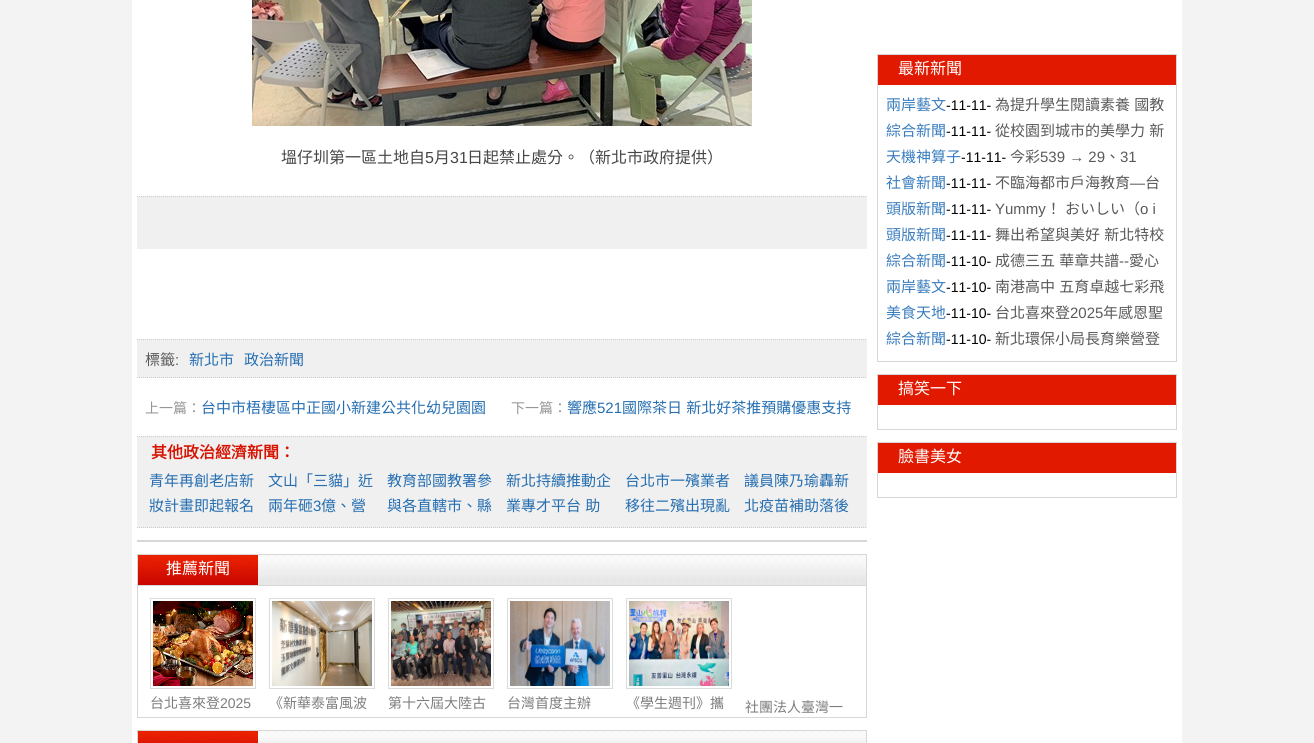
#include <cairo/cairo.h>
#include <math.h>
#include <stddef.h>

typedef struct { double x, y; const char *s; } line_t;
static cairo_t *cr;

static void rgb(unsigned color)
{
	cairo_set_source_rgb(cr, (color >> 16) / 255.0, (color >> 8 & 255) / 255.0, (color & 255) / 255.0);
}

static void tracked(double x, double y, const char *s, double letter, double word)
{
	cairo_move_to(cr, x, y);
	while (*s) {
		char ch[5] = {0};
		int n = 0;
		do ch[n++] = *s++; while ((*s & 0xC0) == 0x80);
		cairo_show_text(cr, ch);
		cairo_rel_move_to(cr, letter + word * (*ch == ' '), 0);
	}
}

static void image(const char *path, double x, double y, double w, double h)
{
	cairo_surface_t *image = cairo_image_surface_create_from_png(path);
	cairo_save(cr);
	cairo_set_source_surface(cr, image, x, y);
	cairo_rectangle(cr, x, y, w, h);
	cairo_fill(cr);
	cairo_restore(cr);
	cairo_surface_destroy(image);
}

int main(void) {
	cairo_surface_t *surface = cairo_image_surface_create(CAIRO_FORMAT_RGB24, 1314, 743);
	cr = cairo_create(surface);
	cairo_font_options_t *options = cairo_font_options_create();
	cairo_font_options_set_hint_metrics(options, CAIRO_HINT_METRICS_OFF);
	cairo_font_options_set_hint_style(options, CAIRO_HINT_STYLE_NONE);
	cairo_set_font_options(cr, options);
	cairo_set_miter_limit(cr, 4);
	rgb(0xf3f3f3);
	cairo_paint(cr);
	rgb(0xffffff);
	cairo_rectangle(cr, 132, 0, 1050, 743);
	cairo_fill(cr);
	image("img/1.png", 252, 0, 500, 126);
	rgb(0xf0f0f0);
	cairo_rectangle(cr, 137, 196, 730, 53);
	cairo_fill(cr);
	cairo_new_path(cr);
	cairo_move_to(cr, 137, 196.5);
	cairo_line_to(cr, 867, 196.5);
	rgb(0xcccccc);
	cairo_set_line_width(cr, 1);
	cairo_set_dash(cr, (double[]){1, 1}, 2, 0);
	cairo_stroke(cr);
	rgb(0xf0f0f0);
	cairo_rectangle(cr, 137, 339, 730, 39);
	cairo_fill(cr);
	cairo_new_path(cr);
	cairo_move_to(cr, 137, 339.5);
	cairo_line_to(cr, 867, 339.5);
	rgb(0xcccccc);
	cairo_stroke(cr);
	cairo_new_path(cr);
	cairo_move_to(cr, 137, 377.5);
	cairo_line_to(cr, 867, 377.5);
	cairo_stroke(cr);
	rgb(0xf0f0f0);
	cairo_rectangle(cr, 137, 436, 730, 92);
	cairo_fill(cr);
	cairo_new_path(cr);
	cairo_move_to(cr, 137, 436.5);
	cairo_line_to(cr, 867, 436.5);
	rgb(0xcccccc);
	cairo_stroke(cr);
	cairo_new_path(cr);
	cairo_move_to(cr, 137, 527.5);
	cairo_line_to(cr, 867, 527.5);
	cairo_stroke(cr);
	rgb(0xd7d7d7);
	cairo_rectangle(cr, 137, 540, 730, 2);
	cairo_fill(cr);
	cairo_rectangle(cr, 137.5, 554.5, 729, 163);
	cairo_set_dash(cr, NULL, 0, 0);
	cairo_stroke(cr);
	image("img/2.png", 258, 555, 608, 30);
	cairo_rectangle(cr, 138, 585, 728, 1);
	cairo_fill(cr);
	image("img/3.png", 138, 555, 120, 30);
	cairo_rectangle(cr, 150.5, 598.5, 105, 90);
	rgb(0xdcdcdc);
	cairo_stroke(cr);
	image("img/4.png", 153, 601, 100, 85);
	cairo_rectangle(cr, 269.5, 598.5, 105, 90);
	cairo_stroke(cr);
	image("img/5.png", 272, 601, 100, 85);
	cairo_rectangle(cr, 388.5, 598.5, 105, 90);
	cairo_stroke(cr);
	image("img/6.png", 391, 601, 100, 85);
	cairo_rectangle(cr, 507.5, 598.5, 105, 90);
	cairo_stroke(cr);
	image("img/7.png", 510, 601, 100, 85);
	cairo_rectangle(cr, 626.5, 598.5, 105, 90);
	cairo_stroke(cr);
	image("img/8.png", 629, 601, 100, 85);
	cairo_rectangle(cr, 137.5, 730.5, 729, 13);
	rgb(0xd7d7d7);
	cairo_stroke(cr);
	image("img/9.png", 258, 731, 608, 12);
	image("img/10.png", 138, 731, 120, 12);
	cairo_rectangle(cr, 877.5, 54.5, 299, 307);
	cairo_stroke(cr);
	rgb(0xe11900);
	cairo_rectangle(cr, 878, 55, 298, 30);
	cairo_fill(cr);
	cairo_rectangle(cr, 877.5, 374.5, 299, 55);
	rgb(0xd7d7d7);
	cairo_stroke(cr);
	rgb(0xe11900);
	cairo_rectangle(cr, 878, 375, 298, 30);
	cairo_fill(cr);
	cairo_rectangle(cr, 877.5, 442.5, 299, 55);
	rgb(0xd7d7d7);
	cairo_stroke(cr);
	rgb(0xe11900);
	cairo_rectangle(cr, 878, 443, 298, 30);
	cairo_fill(cr);
	cairo_select_font_face(cr, "Noto Sans CJK TC", CAIRO_FONT_SLANT_NORMAL, CAIRO_FONT_WEIGHT_NORMAL);
	cairo_set_font_size(cr, 16);
	rgb(0x464646);
	cairo_move_to(cr, 281, 163);
	cairo_show_text(cr, "塭仔圳第一區土地自");
	cairo_select_font_face(cr, "Liberation Sans", CAIRO_FONT_SLANT_NORMAL, CAIRO_FONT_WEIGHT_NORMAL);
	cairo_move_to(cr, 425, 163);
	cairo_show_text(cr, "5");
	cairo_select_font_face(cr, "Noto Sans CJK TC", CAIRO_FONT_SLANT_NORMAL, CAIRO_FONT_WEIGHT_NORMAL);
	cairo_move_to(cr, 434, 163);
	cairo_show_text(cr, "月");
	cairo_select_font_face(cr, "Liberation Sans", CAIRO_FONT_SLANT_NORMAL, CAIRO_FONT_WEIGHT_NORMAL);
	cairo_move_to(cr, 450, 163);
	cairo_show_text(cr, "31");
	cairo_select_font_face(cr, "Noto Sans CJK TC", CAIRO_FONT_SLANT_NORMAL, CAIRO_FONT_WEIGHT_NORMAL);
	cairo_move_to(cr, 467, 163);
	cairo_show_text(cr, "日起禁止處分。（新北市政府提供）");
	cairo_set_font_size(cr, 15);
	rgb(0x5a5a5a);
	cairo_move_to(cr, 145, 365);
	cairo_show_text(cr, "標籤");
	cairo_select_font_face(cr, "Liberation Sans", CAIRO_FONT_SLANT_NORMAL, CAIRO_FONT_WEIGHT_NORMAL);
	cairo_move_to(cr, 175, 365);
	cairo_show_text(cr, ":");
	cairo_select_font_face(cr, "Noto Sans CJK TC", CAIRO_FONT_SLANT_NORMAL, CAIRO_FONT_WEIGHT_NORMAL);
	rgb(0x256eb1);
	cairo_move_to(cr, 189, 365);
	cairo_show_text(cr, "新北市");
	cairo_move_to(cr, 244, 365);
	cairo_show_text(cr, "政治新聞");
	cairo_set_font_size(cr, 14);
	rgb(0x969696);
	cairo_move_to(cr, 145, 413);
	cairo_show_text(cr, "上一篇：");
	cairo_set_font_size(cr, 15);
	rgb(0x256eb1);
	cairo_move_to(cr, 201, 413);
	cairo_show_text(cr, "台中市梧棲區中正國小新建公共化幼兒園園");
	cairo_set_font_size(cr, 14);
	rgb(0x969696);
	cairo_move_to(cr, 511, 413);
	cairo_show_text(cr, "下一篇：");
	cairo_set_font_size(cr, 15);
	rgb(0x256eb1);
	cairo_move_to(cr, 567, 413);
	cairo_show_text(cr, "響應");
	cairo_select_font_face(cr, "Liberation Sans", CAIRO_FONT_SLANT_NORMAL, CAIRO_FONT_WEIGHT_NORMAL);
	cairo_move_to(cr, 597, 413);
	cairo_show_text(cr, "521");
	cairo_select_font_face(cr, "Noto Sans CJK TC", CAIRO_FONT_SLANT_NORMAL, CAIRO_FONT_WEIGHT_NORMAL);
	tracked(622, 413, "國際茶日 新北好茶推預購優惠支持", 0, 1);
	cairo_select_font_face(cr, "Noto Sans CJK TC", CAIRO_FONT_SLANT_NORMAL, CAIRO_FONT_WEIGHT_BOLD);
	cairo_set_font_size(cr, 16);
	rgb(0xd71201);
	cairo_move_to(cr, 151, 458);
	cairo_show_text(cr, "其他政治經濟新聞：");
	cairo_select_font_face(cr, "Noto Sans CJK TC", CAIRO_FONT_SLANT_NORMAL, CAIRO_FONT_WEIGHT_NORMAL);
	cairo_set_font_size(cr, 15);
	rgb(0x256eb1);
	{
		static const line_t items[] = {
			{149, 486, "青年再創老店新"},
			{149, 511, "妝計畫即起報名"},
			{268, 486, "文山「三貓」近"},
			{268, 511, "兩年砸"},
		};
		for (size_t i = 0; i < sizeof items / sizeof *items; i++) {
			cairo_move_to(cr, items[i].x, items[i].y);
			cairo_show_text(cr, items[i].s);
		}
	}
	cairo_select_font_face(cr, "Liberation Sans", CAIRO_FONT_SLANT_NORMAL, CAIRO_FONT_WEIGHT_NORMAL);
	cairo_move_to(cr, 313, 511);
	cairo_show_text(cr, "3");
	cairo_select_font_face(cr, "Noto Sans CJK TC", CAIRO_FONT_SLANT_NORMAL, CAIRO_FONT_WEIGHT_NORMAL);
	{
		static const line_t items[] = {
			{321, 511, "億、營"},
			{387, 486, "教育部國教署參"},
			{387, 511, "與各直轄市、縣"},
			{506, 486, "新北持續推動企"},
		};
		for (size_t i = 0; i < sizeof items / sizeof *items; i++) {
			cairo_move_to(cr, items[i].x, items[i].y);
			cairo_show_text(cr, items[i].s);
		}
	}
	tracked(506, 511, "業專才平台 助", 0, 1);
	{
		static const line_t items[] = {
			{625, 486, "台北市一殯業者"},
			{625, 511, "移往二殯出現亂"},
			{744, 486, "議員陳乃瑜轟新"},
			{744, 511, "北疫苗補助落後"},
		};
		for (size_t i = 0; i < sizeof items / sizeof *items; i++) {
			cairo_move_to(cr, items[i].x, items[i].y);
			cairo_show_text(cr, items[i].s);
		}
	}
	cairo_set_font_size(cr, 16);
	rgb(0xffffff);
	cairo_move_to(cr, 166, 574);
	cairo_show_text(cr, "推薦新聞");
	cairo_set_font_size(cr, 14);
	rgb(0x7d7d7d);
	cairo_move_to(cr, 150, 708);
	cairo_show_text(cr, "台北喜來登");
	cairo_select_font_face(cr, "Liberation Sans", CAIRO_FONT_SLANT_NORMAL, CAIRO_FONT_WEIGHT_NORMAL);
	cairo_move_to(cr, 220, 708);
	cairo_show_text(cr, "2025");
	cairo_select_font_face(cr, "Noto Sans CJK TC", CAIRO_FONT_SLANT_NORMAL, CAIRO_FONT_WEIGHT_NORMAL);
	{
		static const line_t items[] = {
			{269, 708, "《新華泰富風波"},
			{388, 708, "第十六屆大陸古"},
			{507, 708, "台灣首度主辦"},
			{626, 708, "《學生週刊》攜"},
			{745, 712, "社團法人臺灣一"},
		};
		for (size_t i = 0; i < sizeof items / sizeof *items; i++) {
			cairo_move_to(cr, items[i].x, items[i].y);
			cairo_show_text(cr, items[i].s);
		}
	}
	cairo_set_font_size(cr, 16);
	rgb(0xffffff);
	cairo_move_to(cr, 898, 74);
	cairo_show_text(cr, "最新新聞");
	cairo_set_font_size(cr, 15);
	rgb(0x397cbe);
	cairo_move_to(cr, 886, 110);
	cairo_show_text(cr, "兩岸藝文");
	cairo_select_font_face(cr, "Liberation Sans", CAIRO_FONT_SLANT_NORMAL, CAIRO_FONT_WEIGHT_NORMAL);
	cairo_set_font_size(cr, 14);
	rgb(0x000000);
	cairo_move_to(cr, 946, 110);
	cairo_show_text(cr, "-11-11-");
	cairo_select_font_face(cr, "Noto Sans CJK TC", CAIRO_FONT_SLANT_NORMAL, CAIRO_FONT_WEIGHT_NORMAL);
	cairo_set_font_size(cr, 15);
	rgb(0x5a5a5a);
	tracked(995, 110, "為提升學生閱讀素養 國教", 0, 1);
	rgb(0x397cbe);
	cairo_move_to(cr, 886, 136);
	cairo_show_text(cr, "綜合新聞");
	cairo_select_font_face(cr, "Liberation Sans", CAIRO_FONT_SLANT_NORMAL, CAIRO_FONT_WEIGHT_NORMAL);
	cairo_set_font_size(cr, 14);
	rgb(0x000000);
	cairo_move_to(cr, 946, 136);
	cairo_show_text(cr, "-11-11-");
	cairo_select_font_face(cr, "Noto Sans CJK TC", CAIRO_FONT_SLANT_NORMAL, CAIRO_FONT_WEIGHT_NORMAL);
	cairo_set_font_size(cr, 15);
	rgb(0x5a5a5a);
	tracked(995, 136, "從校園到城市的美學力 新", 0, 1);
	rgb(0x397cbe);
	cairo_move_to(cr, 886, 162);
	cairo_show_text(cr, "天機神算子");
	cairo_select_font_face(cr, "Liberation Sans", CAIRO_FONT_SLANT_NORMAL, CAIRO_FONT_WEIGHT_NORMAL);
	cairo_set_font_size(cr, 14);
	rgb(0x000000);
	cairo_move_to(cr, 961, 162);
	cairo_show_text(cr, "-11-11-");
	cairo_select_font_face(cr, "Noto Sans CJK TC", CAIRO_FONT_SLANT_NORMAL, CAIRO_FONT_WEIGHT_NORMAL);
	cairo_set_font_size(cr, 15);
	rgb(0x5a5a5a);
	cairo_move_to(cr, 1010, 162);
	cairo_show_text(cr, "今彩");
	cairo_select_font_face(cr, "Liberation Sans", CAIRO_FONT_SLANT_NORMAL, CAIRO_FONT_WEIGHT_NORMAL);
	cairo_move_to(cr, 1040, 162);
	cairo_show_text(cr, "539 → 29");
	cairo_select_font_face(cr, "Noto Sans CJK TC", CAIRO_FONT_SLANT_NORMAL, CAIRO_FONT_WEIGHT_NORMAL);
	cairo_move_to(cr, 1105, 162);
	cairo_show_text(cr, "、");
	cairo_select_font_face(cr, "Liberation Sans", CAIRO_FONT_SLANT_NORMAL, CAIRO_FONT_WEIGHT_NORMAL);
	cairo_move_to(cr, 1120, 162);
	cairo_show_text(cr, "31");
	cairo_select_font_face(cr, "Noto Sans CJK TC", CAIRO_FONT_SLANT_NORMAL, CAIRO_FONT_WEIGHT_NORMAL);
	rgb(0x397cbe);
	cairo_move_to(cr, 886, 188);
	cairo_show_text(cr, "社會新聞");
	cairo_select_font_face(cr, "Liberation Sans", CAIRO_FONT_SLANT_NORMAL, CAIRO_FONT_WEIGHT_NORMAL);
	cairo_set_font_size(cr, 14);
	rgb(0x000000);
	cairo_move_to(cr, 946, 188);
	cairo_show_text(cr, "-11-11-");
	cairo_select_font_face(cr, "Noto Sans CJK TC", CAIRO_FONT_SLANT_NORMAL, CAIRO_FONT_WEIGHT_NORMAL);
	cairo_set_font_size(cr, 15);
	rgb(0x5a5a5a);
	cairo_move_to(cr, 995, 188);
	cairo_show_text(cr, "不臨海都市戶海教育");
	cairo_select_font_face(cr, "Liberation Sans", CAIRO_FONT_SLANT_NORMAL, CAIRO_FONT_WEIGHT_NORMAL);
	cairo_move_to(cr, 1130, 188);
	cairo_show_text(cr, "—");
	cairo_select_font_face(cr, "Noto Sans CJK TC", CAIRO_FONT_SLANT_NORMAL, CAIRO_FONT_WEIGHT_NORMAL);
	cairo_move_to(cr, 1145, 188);
	cairo_show_text(cr, "台");
	rgb(0x397cbe);
	cairo_move_to(cr, 886, 214);
	cairo_show_text(cr, "頭版新聞");
	cairo_select_font_face(cr, "Liberation Sans", CAIRO_FONT_SLANT_NORMAL, CAIRO_FONT_WEIGHT_NORMAL);
	cairo_set_font_size(cr, 14);
	rgb(0x000000);
	cairo_move_to(cr, 946, 214);
	cairo_show_text(cr, "-11-11-");
	cairo_set_font_size(cr, 15);
	rgb(0x5a5a5a);
	cairo_move_to(cr, 995, 214);
	cairo_show_text(cr, "Yummy");
	cairo_select_font_face(cr, "Noto Sans CJK TC", CAIRO_FONT_SLANT_NORMAL, CAIRO_FONT_WEIGHT_NORMAL);
	cairo_move_to(cr, 1046, 214);
	cairo_show_text(cr, "！");
	cairo_move_to(cr, 1065, 214);
	cairo_show_text(cr, "おいしい（");
	cairo_select_font_face(cr, "Liberation Sans", CAIRO_FONT_SLANT_NORMAL, CAIRO_FONT_WEIGHT_NORMAL);
	cairo_move_to(cr, 1140, 214);
	cairo_show_text(cr, "o i");
	cairo_select_font_face(cr, "Noto Sans CJK TC", CAIRO_FONT_SLANT_NORMAL, CAIRO_FONT_WEIGHT_NORMAL);
	rgb(0x397cbe);
	cairo_move_to(cr, 886, 240);
	cairo_show_text(cr, "頭版新聞");
	cairo_select_font_face(cr, "Liberation Sans", CAIRO_FONT_SLANT_NORMAL, CAIRO_FONT_WEIGHT_NORMAL);
	cairo_set_font_size(cr, 14);
	rgb(0x000000);
	cairo_move_to(cr, 946, 240);
	cairo_show_text(cr, "-11-11-");
	cairo_select_font_face(cr, "Noto Sans CJK TC", CAIRO_FONT_SLANT_NORMAL, CAIRO_FONT_WEIGHT_NORMAL);
	cairo_set_font_size(cr, 15);
	rgb(0x5a5a5a);
	tracked(995, 240, "舞出希望與美好 新北特校", 0, 1);
	rgb(0x397cbe);
	cairo_move_to(cr, 886, 266);
	cairo_show_text(cr, "綜合新聞");
	cairo_select_font_face(cr, "Liberation Sans", CAIRO_FONT_SLANT_NORMAL, CAIRO_FONT_WEIGHT_NORMAL);
	cairo_set_font_size(cr, 14);
	rgb(0x000000);
	cairo_move_to(cr, 946, 266);
	cairo_show_text(cr, "-11-10-");
	cairo_select_font_face(cr, "Noto Sans CJK TC", CAIRO_FONT_SLANT_NORMAL, CAIRO_FONT_WEIGHT_NORMAL);
	cairo_set_font_size(cr, 15);
	rgb(0x5a5a5a);
	tracked(995, 266, "成德三五 華章共譜", 0, 1);
	cairo_select_font_face(cr, "Liberation Sans", CAIRO_FONT_SLANT_NORMAL, CAIRO_FONT_WEIGHT_NORMAL);
	cairo_move_to(cr, 1119, 266);
	cairo_show_text(cr, "--");
	cairo_select_font_face(cr, "Noto Sans CJK TC", CAIRO_FONT_SLANT_NORMAL, CAIRO_FONT_WEIGHT_NORMAL);
	cairo_move_to(cr, 1129, 266);
	cairo_show_text(cr, "愛心");
	rgb(0x397cbe);
	cairo_move_to(cr, 886, 292);
	cairo_show_text(cr, "兩岸藝文");
	cairo_select_font_face(cr, "Liberation Sans", CAIRO_FONT_SLANT_NORMAL, CAIRO_FONT_WEIGHT_NORMAL);
	cairo_set_font_size(cr, 14);
	rgb(0x000000);
	cairo_move_to(cr, 946, 292);
	cairo_show_text(cr, "-11-10-");
	cairo_select_font_face(cr, "Noto Sans CJK TC", CAIRO_FONT_SLANT_NORMAL, CAIRO_FONT_WEIGHT_NORMAL);
	cairo_set_font_size(cr, 15);
	rgb(0x5a5a5a);
	tracked(995, 292, "南港高中 五育卓越七彩飛", 0, 1);
	rgb(0x397cbe);
	cairo_move_to(cr, 886, 318);
	cairo_show_text(cr, "美食天地");
	cairo_select_font_face(cr, "Liberation Sans", CAIRO_FONT_SLANT_NORMAL, CAIRO_FONT_WEIGHT_NORMAL);
	cairo_set_font_size(cr, 14);
	rgb(0x000000);
	cairo_move_to(cr, 946, 318);
	cairo_show_text(cr, "-11-10-");
	cairo_select_font_face(cr, "Noto Sans CJK TC", CAIRO_FONT_SLANT_NORMAL, CAIRO_FONT_WEIGHT_NORMAL);
	cairo_set_font_size(cr, 15);
	rgb(0x5a5a5a);
	cairo_move_to(cr, 995, 318);
	cairo_show_text(cr, "台北喜來登");
	cairo_select_font_face(cr, "Liberation Sans", CAIRO_FONT_SLANT_NORMAL, CAIRO_FONT_WEIGHT_NORMAL);
	cairo_move_to(cr, 1070, 318);
	cairo_show_text(cr, "2025");
	cairo_select_font_face(cr, "Noto Sans CJK TC", CAIRO_FONT_SLANT_NORMAL, CAIRO_FONT_WEIGHT_NORMAL);
	cairo_move_to(cr, 1103, 318);
	cairo_show_text(cr, "年感恩聖");
	rgb(0x397cbe);
	cairo_move_to(cr, 886, 344);
	cairo_show_text(cr, "綜合新聞");
	cairo_select_font_face(cr, "Liberation Sans", CAIRO_FONT_SLANT_NORMAL, CAIRO_FONT_WEIGHT_NORMAL);
	cairo_set_font_size(cr, 14);
	rgb(0x000000);
	cairo_move_to(cr, 946, 344);
	cairo_show_text(cr, "-11-10-");
	cairo_select_font_face(cr, "Noto Sans CJK TC", CAIRO_FONT_SLANT_NORMAL, CAIRO_FONT_WEIGHT_NORMAL);
	cairo_set_font_size(cr, 15);
	rgb(0x5a5a5a);
	cairo_move_to(cr, 995, 344);
	cairo_show_text(cr, "新北環保小局長育樂營登");
	cairo_set_font_size(cr, 16);
	rgb(0xffffff);
	cairo_move_to(cr, 898, 394);
	cairo_show_text(cr, "搞笑一下");
	cairo_move_to(cr, 898, 462);
	cairo_show_text(cr, "臉書美女");
	cairo_surface_write_to_png(surface, "page.png");
	cairo_font_options_destroy(options);
	cairo_destroy(cr);
	cairo_surface_destroy(surface);
	return 0;
}
